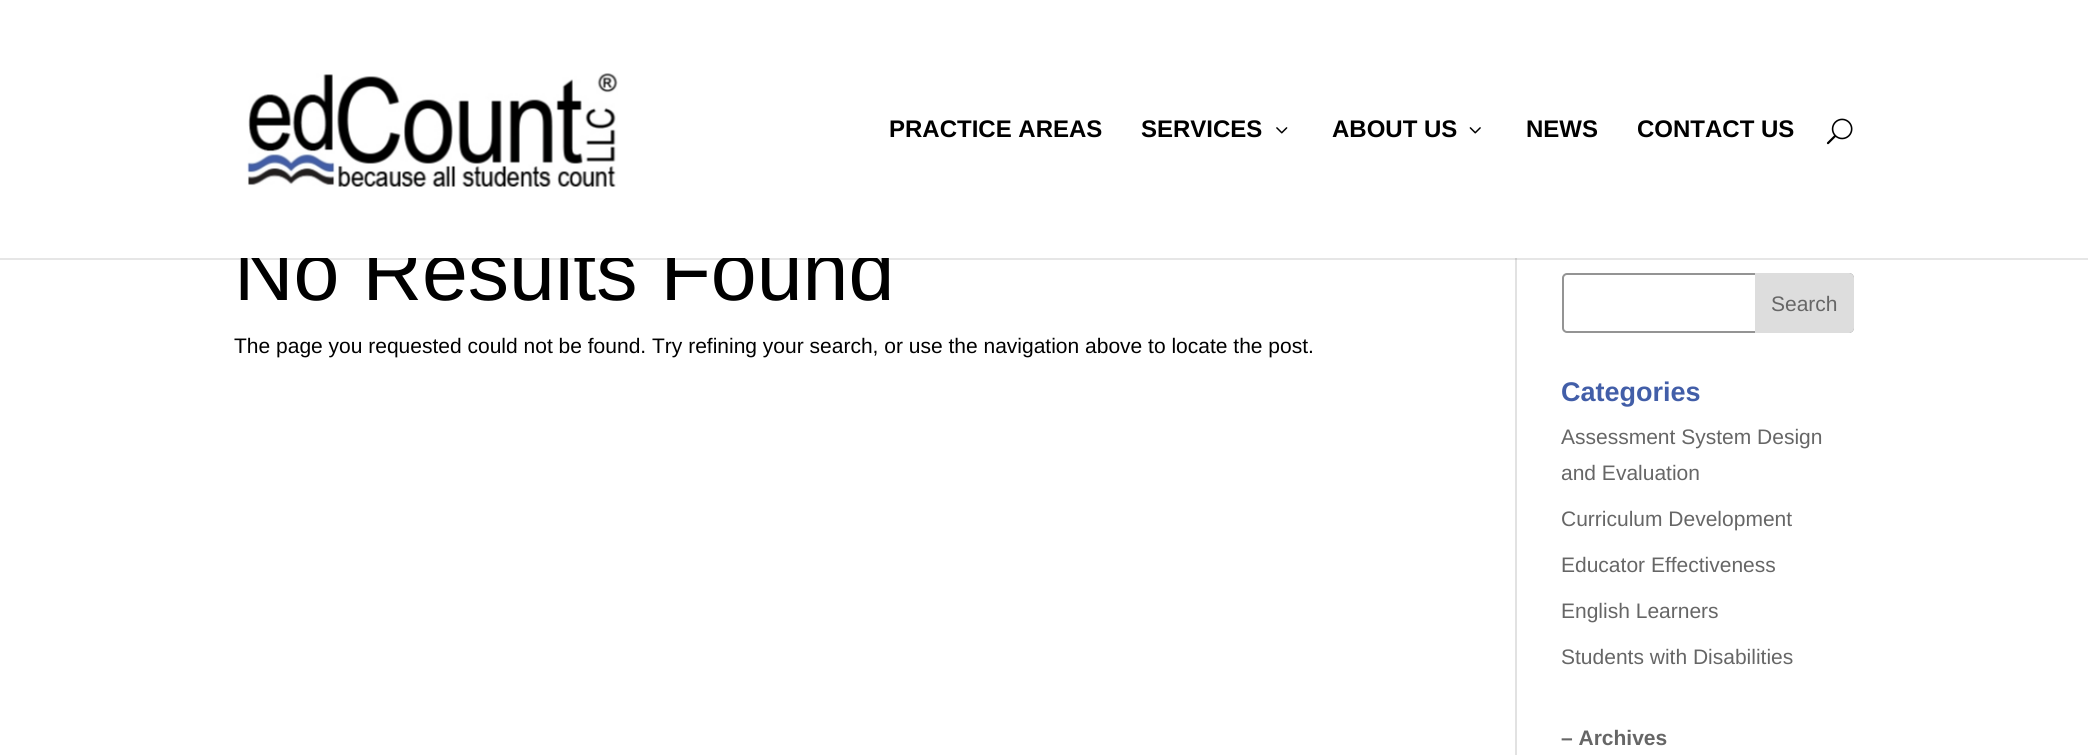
#include <cairo/cairo.h>
#include <math.h>
#include <stddef.h>

typedef struct { double x, y; const char *s; } line_t;
static cairo_t *cr;

static void rgb(unsigned color)
{
	cairo_set_source_rgb(cr, (color >> 16) / 255.0, (color >> 8 & 255) / 255.0, (color & 255) / 255.0);
}

static void rrect(double x, double y, double w, double h, double r)
{
	cairo_new_sub_path(cr);
	cairo_arc(cr, x + w - r, y + h - r, r, 0, M_PI / 2);
	cairo_arc(cr, x + r, y + h - r, r, M_PI / 2, M_PI);
	cairo_arc(cr, x + r, y + r, r, M_PI, 1.5 * M_PI);
	cairo_arc(cr, x + w - r, y + r, r, 1.5 * M_PI, 2 * M_PI);
	cairo_close_path(cr);
}

static void image(const char *path, double x, double y, double w, double h)
{
	cairo_surface_t *image = cairo_image_surface_create_from_png(path);
	cairo_save(cr);
	cairo_set_source_surface(cr, image, x, y);
	cairo_rectangle(cr, x, y, w, h);
	cairo_fill(cr);
	cairo_restore(cr);
	cairo_surface_destroy(image);
}

int main(void) {
	cairo_surface_t *surface = cairo_image_surface_create(CAIRO_FORMAT_RGB24, 2088, 755);
	cr = cairo_create(surface);
	cairo_font_options_t *options = cairo_font_options_create();
	cairo_font_options_set_hint_metrics(options, CAIRO_HINT_METRICS_OFF);
	cairo_font_options_set_hint_style(options, CAIRO_HINT_STYLE_NONE);
	cairo_set_font_options(cr, options);
	cairo_set_miter_limit(cr, 4);
	rgb(0xffffff);
	cairo_paint(cr);
	rgb(0xe2e2e2);
	cairo_rectangle(cr, 1515, 258, 2, 497);
	cairo_fill(cr);
	cairo_set_source_rgba(cr, 0, 0, 0, 0.1);
	cairo_rectangle(cr, 0, 258, 2088, 2);
	cairo_fill(cr);
	image("img/1.png", 247, 73, 371, 114);
	image("img/2.png", 1276, 127, 12, 7);
	image("img/3.png", 1469, 127, 12, 7);
	image("img/4.png", 1826, 118, 27, 27);
	rrect(1563, 274, 290, 58, 4);
	rgb(0x949494);
	cairo_stroke(cr);
	rgb(0xdddddd);
	cairo_new_path(cr);
	cairo_move_to(cr, 1756, 274);
	cairo_line_to(cr, 1849, 274);
	cairo_curve_to(cr, 1851, 274, 1853, 276, 1853, 278);
	cairo_line_to(cr, 1853, 328);
	cairo_curve_to(cr, 1853, 330, 1851, 332, 1849, 332);
	cairo_line_to(cr, 1756, 332);
	cairo_close_path(cr);
	cairo_fill_preserve(cr);
	cairo_stroke(cr);
	cairo_select_font_face(cr, "Liberation Sans", CAIRO_FONT_SLANT_NORMAL, CAIRO_FONT_WEIGHT_BOLD);
	cairo_set_font_size(cr, 24);
	rgb(0x000000);
	{
		static const line_t items[] = {
			{889, 137, "PRACTICE AREAS"},
			{1141, 137, "SERVICES"},
			{1332, 137, "ABOUT US"},
			{1526, 137, "NEWS"},
			{1637, 137, "CONTACT US"},
		};
		for (size_t i = 0; i < sizeof items / sizeof *items; i++) {
			cairo_move_to(cr, items[i].x, items[i].y);
			cairo_show_text(cr, items[i].s);
		}
	}
	cairo_select_font_face(cr, "Liberation Sans", CAIRO_FONT_SLANT_NORMAL, CAIRO_FONT_WEIGHT_NORMAL);
	cairo_set_font_size(cr, 82.5);
	cairo_move_to(cr, 234, 300);
	cairo_show_text(cr, "No Results Found");
	rgb(0xffffff);
	cairo_rectangle(cr, 240, 240, 649, 18);
	cairo_fill(cr);
	cairo_set_font_size(cr, 21);
	rgb(0x000000);
	cairo_move_to(cr, 234, 353);
	cairo_show_text(cr, "The page you requested could not be found. Try refining your search, or use the navigation above to locate the post.");
	rgb(0x666666);
	cairo_move_to(cr, 1771, 311);
	cairo_show_text(cr, "Search");
	cairo_select_font_face(cr, "Liberation Sans", CAIRO_FONT_SLANT_NORMAL, CAIRO_FONT_WEIGHT_BOLD);
	cairo_set_font_size(cr, 27);
	rgb(0x425ea8);
	cairo_move_to(cr, 1561, 401);
	cairo_show_text(cr, "Categories");
	cairo_select_font_face(cr, "Liberation Sans", CAIRO_FONT_SLANT_NORMAL, CAIRO_FONT_WEIGHT_NORMAL);
	cairo_set_font_size(cr, 21);
	rgb(0x666666);
	{
		static const line_t items[] = {
			{1561, 444, "Assessment System Design"},
			{1561, 480, "and Evaluation"},
			{1561, 526, "Curriculum Development"},
			{1561, 572, "Educator Effectiveness"},
			{1561, 618, "English Learners"},
			{1561, 664, "Students with Disabilities"},
		};
		for (size_t i = 0; i < sizeof items / sizeof *items; i++) {
			cairo_move_to(cr, items[i].x, items[i].y);
			cairo_show_text(cr, items[i].s);
		}
	}
	cairo_select_font_face(cr, "Liberation Sans", CAIRO_FONT_SLANT_NORMAL, CAIRO_FONT_WEIGHT_BOLD);
	cairo_move_to(cr, 1561, 745);
	cairo_show_text(cr, "– Archives");
	cairo_surface_write_to_png(surface, "page.png");
	cairo_font_options_destroy(options);
	cairo_destroy(cr);
	cairo_surface_destroy(surface);
	return 0;
}
